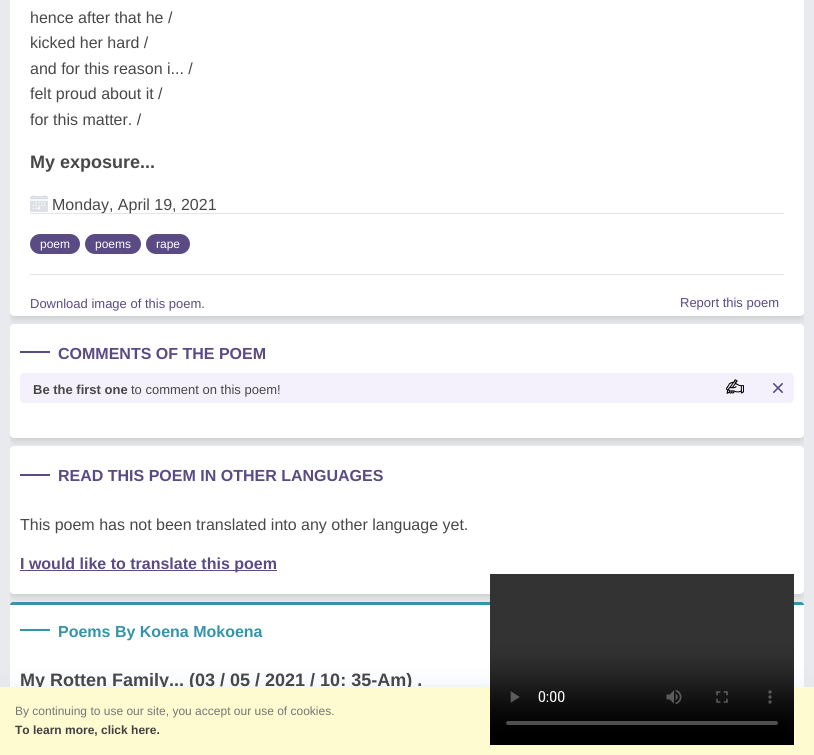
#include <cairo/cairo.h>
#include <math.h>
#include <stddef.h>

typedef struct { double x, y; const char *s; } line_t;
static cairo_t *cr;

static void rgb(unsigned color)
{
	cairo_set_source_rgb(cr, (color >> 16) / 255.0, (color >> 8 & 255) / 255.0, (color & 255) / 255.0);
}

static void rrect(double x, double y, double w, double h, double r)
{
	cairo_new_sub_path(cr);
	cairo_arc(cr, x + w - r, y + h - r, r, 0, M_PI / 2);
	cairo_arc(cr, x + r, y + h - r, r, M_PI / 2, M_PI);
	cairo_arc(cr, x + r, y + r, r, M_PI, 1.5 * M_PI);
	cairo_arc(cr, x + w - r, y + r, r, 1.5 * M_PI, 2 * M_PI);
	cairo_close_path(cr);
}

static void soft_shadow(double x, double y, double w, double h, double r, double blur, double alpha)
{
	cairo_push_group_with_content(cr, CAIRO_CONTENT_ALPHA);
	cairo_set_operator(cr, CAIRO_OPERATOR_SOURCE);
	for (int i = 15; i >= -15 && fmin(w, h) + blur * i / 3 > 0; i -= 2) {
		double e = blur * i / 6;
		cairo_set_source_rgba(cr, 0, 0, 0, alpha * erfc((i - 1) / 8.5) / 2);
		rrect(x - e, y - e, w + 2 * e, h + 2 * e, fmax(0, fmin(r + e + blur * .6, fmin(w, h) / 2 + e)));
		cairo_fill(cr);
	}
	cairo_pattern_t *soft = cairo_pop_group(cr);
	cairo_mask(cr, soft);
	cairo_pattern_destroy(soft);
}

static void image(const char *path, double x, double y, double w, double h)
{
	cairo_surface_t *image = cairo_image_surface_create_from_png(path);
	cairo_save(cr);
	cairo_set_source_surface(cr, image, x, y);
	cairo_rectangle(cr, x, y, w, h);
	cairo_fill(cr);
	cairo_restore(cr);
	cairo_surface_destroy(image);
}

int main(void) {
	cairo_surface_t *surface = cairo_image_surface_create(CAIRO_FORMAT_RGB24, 814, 755);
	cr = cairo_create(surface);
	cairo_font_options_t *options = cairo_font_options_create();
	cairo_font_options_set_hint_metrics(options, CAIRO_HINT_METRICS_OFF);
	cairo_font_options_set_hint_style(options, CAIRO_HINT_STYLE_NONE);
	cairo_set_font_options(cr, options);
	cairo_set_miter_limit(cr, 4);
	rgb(0xe8eaed);
	cairo_paint(cr);
	cairo_save(cr);
	cairo_rectangle(cr, 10, 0, 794, 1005);
	cairo_clip(cr);
	rgb(0xb9b9b9);
	soft_shadow(10, -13, 794, 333, 4, 3, 0.5);
	cairo_restore(cr);
	rgb(0xffffff);
	rrect(10, -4, 794, 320, 4);
	cairo_fill(cr);
	image("img/1.png", 30, 195, 18, 17);
	cairo_set_source_rgba(cr, 0, 0, 0, 0.1);
	cairo_rectangle(cr, 30, 213, 754, 1);
	cairo_fill(cr);
	rgb(0xe6e6e6);
	cairo_rectangle(cr, 30, 274, 754, 1);
	cairo_fill(cr);
	rgb(0x5a4b84);
	rrect(30, 234, 50, 20, 10);
	cairo_fill(cr);
	rrect(85, 234, 56, 20, 10);
	cairo_fill(cr);
	rrect(146, 234, 44, 20, 10);
	cairo_fill(cr);
	cairo_save(cr);
	cairo_rectangle(cr, 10, 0, 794, 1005);
	cairo_clip(cr);
	rgb(0xb9b9b9);
	soft_shadow(10, 328, 794, 114, 4, 3, 0.5);
	cairo_restore(cr);
	rgb(0xffffff);
	rrect(10, 324, 794, 114, 4);
	cairo_fill(cr);
	rgb(0x5a4b84);
	cairo_rectangle(cr, 20, 351, 30, 2);
	cairo_fill(cr);
	rgb(0xf4f1fc);
	rrect(20, 373, 774, 30, 4);
	cairo_fill(cr);
	image("img/3.png", 726, 379, 18, 15);
	image("img/4.png", 773, 383, 10, 10);
	cairo_save(cr);
	cairo_rectangle(cr, 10, 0, 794, 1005);
	cairo_clip(cr);
	rgb(0xb9b9b9);
	soft_shadow(10, 450, 794, 148, 4, 3, 0.5);
	cairo_restore(cr);
	rgb(0xffffff);
	rrect(10, 446, 794, 148, 4);
	cairo_fill(cr);
	rgb(0x5a4b84);
	cairo_rectangle(cr, 20, 474, 30, 2);
	cairo_fill(cr);
	cairo_rectangle(cr, 20, 570, 257, 1);
	cairo_fill(cr);
	cairo_save(cr);
	cairo_rectangle(cr, 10, 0, 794, 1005);
	cairo_clip(cr);
	rgb(0xb9b9b9);
	soft_shadow(10, 606, 794, 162, 4, 3, 0.5);
	cairo_restore(cr);
	rgb(0xffffff);
	rrect(10, 602, 794, 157, 4);
	cairo_fill(cr);
	rgb(0x3694aa);
	cairo_new_path(cr);
	cairo_move_to(cr, 13, 602);
	cairo_line_to(cr, 801, 602);
	cairo_curve_to(cr, 802.5, 602, 804, 603.5, 804, 605);
	cairo_line_to(cr, 10, 605);
	cairo_curve_to(cr, 10, 603.5, 11.5, 602, 13, 602);
	cairo_close_path(cr);
	cairo_fill(cr);
	cairo_rectangle(cr, 20, 629, 30, 2);
	cairo_fill(cr);
	rgb(0x98bff8);
	soft_shadow(15, 697, 784, 38, 0, 15, 0.5);
	cairo_select_font_face(cr, "Liberation Sans", CAIRO_FONT_SLANT_NORMAL, CAIRO_FONT_WEIGHT_NORMAL);
	cairo_set_font_size(cr, 16);
	rgb(0x484848);
	{
		static const line_t items[] = {
			{30, 23, "hence after that he /"},
			{30, 48, "kicked her hard /"},
			{30, 74, "and for this reason i... /"},
			{30, 99, "felt proud about it /"},
			{30, 125, "for this matter. /"},
		};
		for (size_t i = 0; i < sizeof items / sizeof *items; i++) {
			cairo_move_to(cr, items[i].x, items[i].y);
			cairo_show_text(cr, items[i].s);
		}
	}
	cairo_select_font_face(cr, "Liberation Sans", CAIRO_FONT_SLANT_NORMAL, CAIRO_FONT_WEIGHT_BOLD);
	cairo_set_font_size(cr, 18);
	cairo_move_to(cr, 30, 168);
	cairo_show_text(cr, "My exposure...");
	cairo_select_font_face(cr, "Liberation Sans", CAIRO_FONT_SLANT_NORMAL, CAIRO_FONT_WEIGHT_NORMAL);
	cairo_set_font_size(cr, 16);
	cairo_move_to(cr, 52, 210);
	cairo_show_text(cr, "Monday, April 19, 2021");
	cairo_set_font_size(cr, 12);
	rgb(0xffffff);
	{
		static const line_t items[] = {
			{40, 248, "poem"},
			{95, 248, "poems"},
			{156, 248, "rape"},
		};
		for (size_t i = 0; i < sizeof items / sizeof *items; i++) {
			cairo_move_to(cr, items[i].x, items[i].y);
			cairo_show_text(cr, items[i].s);
		}
	}
	cairo_set_font_size(cr, 13);
	rgb(0x5a4b84);
	cairo_move_to(cr, 30, 308);
	cairo_show_text(cr, "Download image of this poem.");
	cairo_move_to(cr, 680, 307);
	cairo_show_text(cr, "Report this poem");
	cairo_select_font_face(cr, "Liberation Sans", CAIRO_FONT_SLANT_NORMAL, CAIRO_FONT_WEIGHT_BOLD);
	cairo_set_font_size(cr, 16);
	cairo_move_to(cr, 58, 359);
	cairo_show_text(cr, "COMMENTS OF THE POEM");
	cairo_set_font_size(cr, 13);
	rgb(0x484848);
	cairo_move_to(cr, 33, 394);
	cairo_show_text(cr, "Be the first one");
	cairo_select_font_face(cr, "Liberation Sans", CAIRO_FONT_SLANT_NORMAL, CAIRO_FONT_WEIGHT_NORMAL);
	cairo_move_to(cr, 131, 394);
	cairo_show_text(cr, "to comment on this poem!");
	cairo_select_font_face(cr, "Liberation Sans", CAIRO_FONT_SLANT_NORMAL, CAIRO_FONT_WEIGHT_BOLD);
	cairo_set_font_size(cr, 16);
	rgb(0x5a4b84);
	cairo_move_to(cr, 58, 481);
	cairo_show_text(cr, "READ THIS POEM IN OTHER LANGUAGES");
	cairo_select_font_face(cr, "Liberation Sans", CAIRO_FONT_SLANT_NORMAL, CAIRO_FONT_WEIGHT_NORMAL);
	rgb(0x484848);
	cairo_move_to(cr, 20, 530);
	cairo_show_text(cr, "This poem has not been translated into any other language yet.");
	cairo_select_font_face(cr, "Liberation Sans", CAIRO_FONT_SLANT_NORMAL, CAIRO_FONT_WEIGHT_BOLD);
	rgb(0x5a4b84);
	cairo_move_to(cr, 20, 569);
	cairo_show_text(cr, "I would like to translate this poem");
	rgb(0x3694aa);
	cairo_move_to(cr, 58, 637);
	cairo_show_text(cr, "Poems By Koena Mokoena");
	cairo_set_font_size(cr, 18);
	rgb(0x484848);
	cairo_move_to(cr, 20, 686);
	cairo_show_text(cr, "My Rotten Family... (03 / 05 / 2021 / 10: 35-Am) .");
	rgb(0xfffbd0);
	cairo_rectangle(cr, 0, 687, 814, 68);
	cairo_fill(cr);
	image("img/2.png", 490, 574, 304, 171);
	cairo_select_font_face(cr, "Liberation Sans", CAIRO_FONT_SLANT_NORMAL, CAIRO_FONT_WEIGHT_NORMAL);
	cairo_set_font_size(cr, 12);
	rgb(0x757575);
	cairo_move_to(cr, 15, 715);
	cairo_show_text(cr, "By continuing to use our site, you accept our use of cookies.");
	cairo_select_font_face(cr, "Liberation Sans", CAIRO_FONT_SLANT_NORMAL, CAIRO_FONT_WEIGHT_BOLD);
	rgb(0x404040);
	cairo_move_to(cr, 15, 734);
	cairo_show_text(cr, "To learn more, click here.");
	cairo_surface_write_to_png(surface, "page.png");
	cairo_font_options_destroy(options);
	cairo_destroy(cr);
	cairo_surface_destroy(surface);
	return 0;
}
